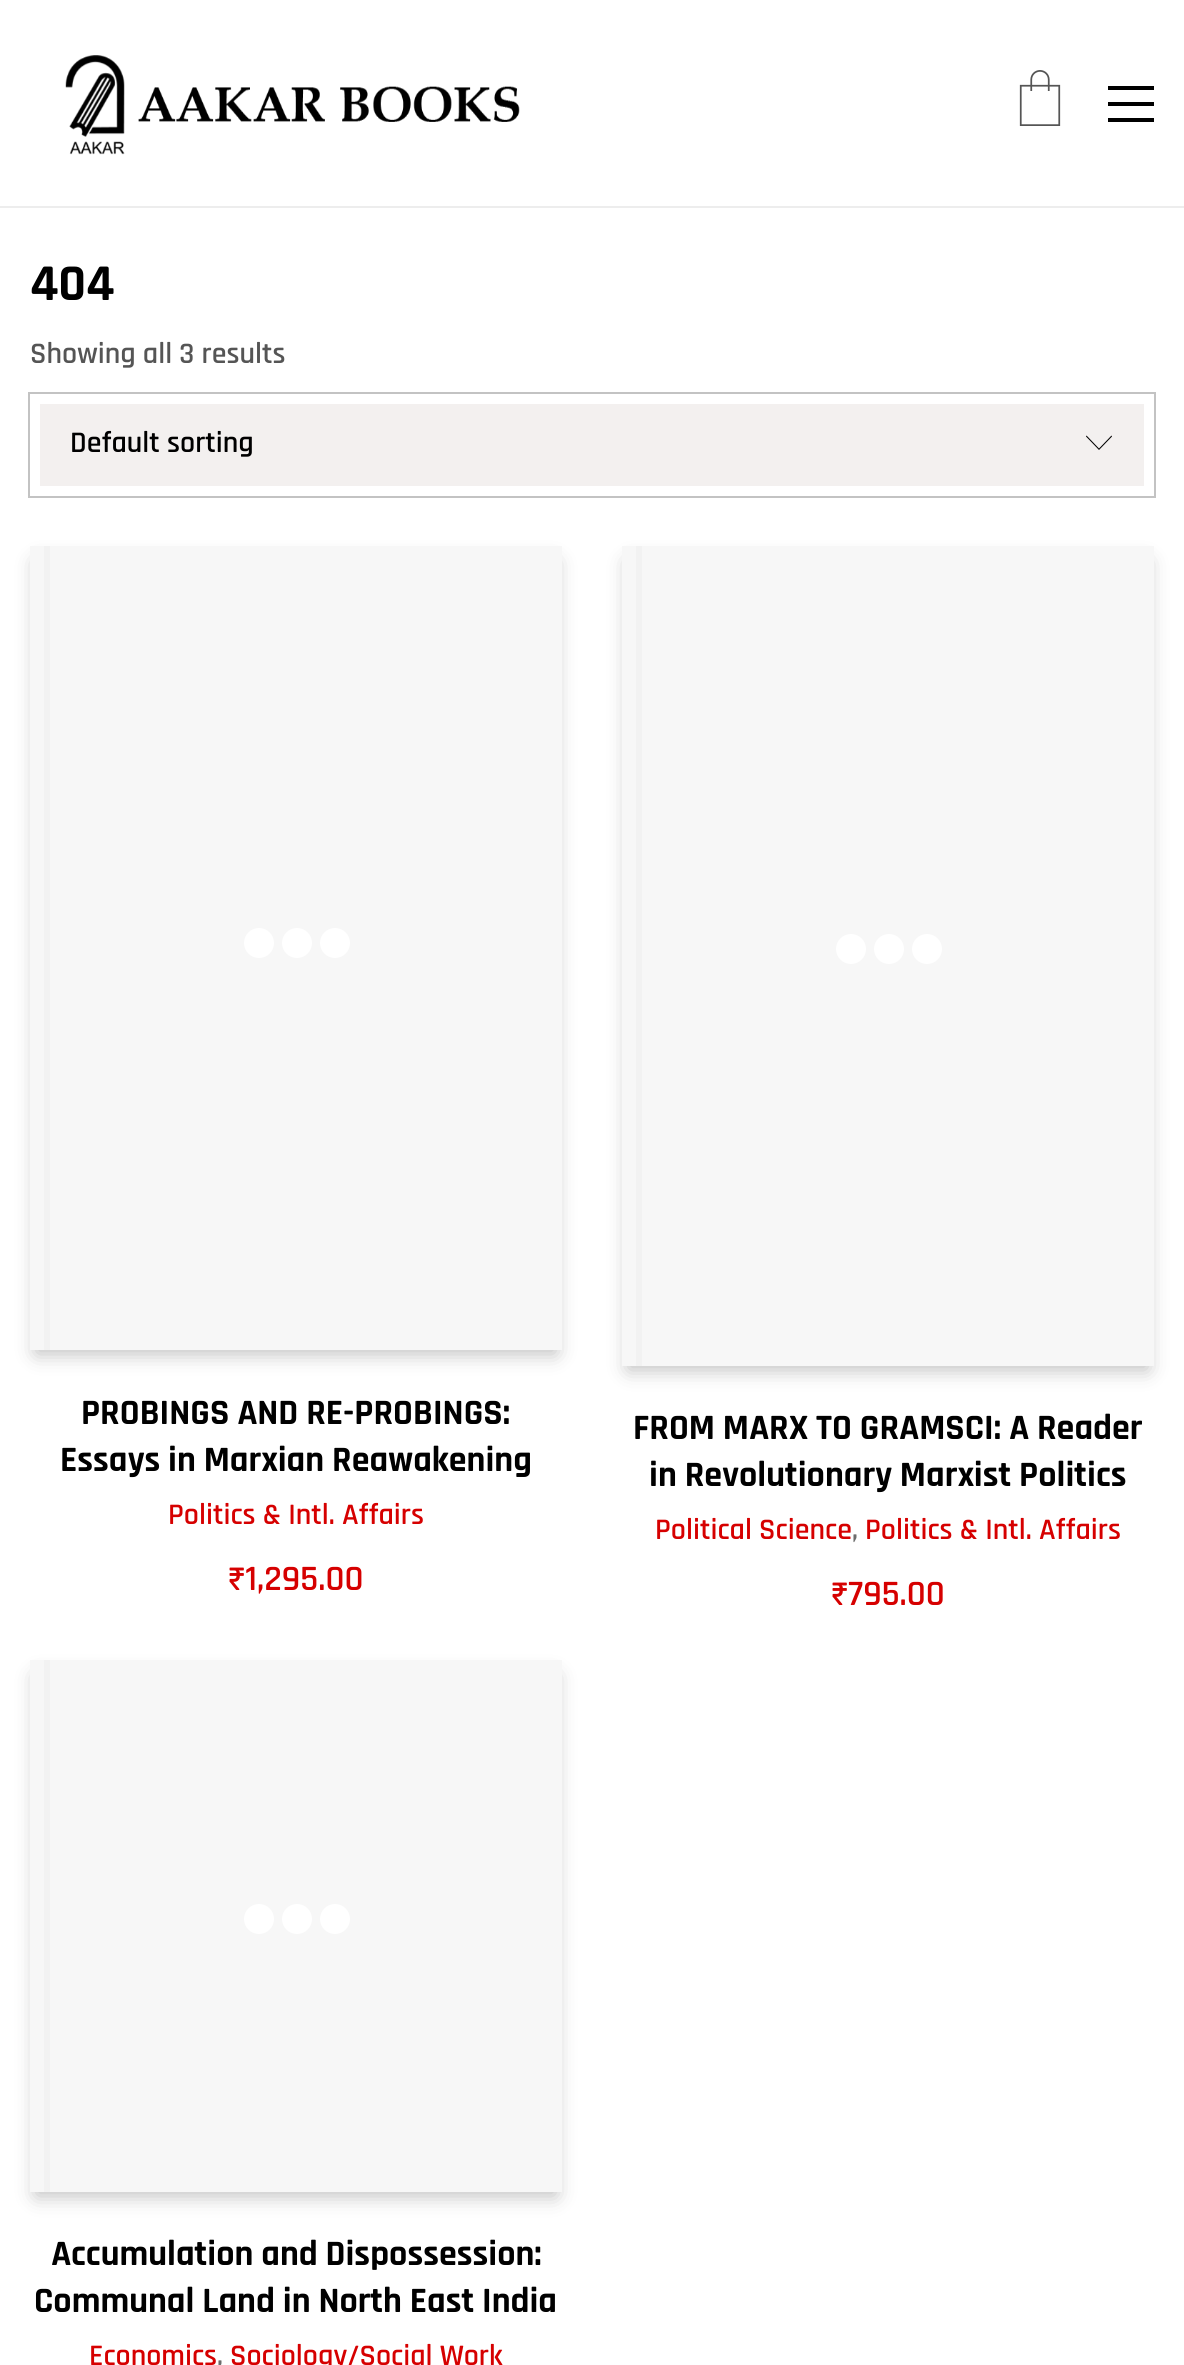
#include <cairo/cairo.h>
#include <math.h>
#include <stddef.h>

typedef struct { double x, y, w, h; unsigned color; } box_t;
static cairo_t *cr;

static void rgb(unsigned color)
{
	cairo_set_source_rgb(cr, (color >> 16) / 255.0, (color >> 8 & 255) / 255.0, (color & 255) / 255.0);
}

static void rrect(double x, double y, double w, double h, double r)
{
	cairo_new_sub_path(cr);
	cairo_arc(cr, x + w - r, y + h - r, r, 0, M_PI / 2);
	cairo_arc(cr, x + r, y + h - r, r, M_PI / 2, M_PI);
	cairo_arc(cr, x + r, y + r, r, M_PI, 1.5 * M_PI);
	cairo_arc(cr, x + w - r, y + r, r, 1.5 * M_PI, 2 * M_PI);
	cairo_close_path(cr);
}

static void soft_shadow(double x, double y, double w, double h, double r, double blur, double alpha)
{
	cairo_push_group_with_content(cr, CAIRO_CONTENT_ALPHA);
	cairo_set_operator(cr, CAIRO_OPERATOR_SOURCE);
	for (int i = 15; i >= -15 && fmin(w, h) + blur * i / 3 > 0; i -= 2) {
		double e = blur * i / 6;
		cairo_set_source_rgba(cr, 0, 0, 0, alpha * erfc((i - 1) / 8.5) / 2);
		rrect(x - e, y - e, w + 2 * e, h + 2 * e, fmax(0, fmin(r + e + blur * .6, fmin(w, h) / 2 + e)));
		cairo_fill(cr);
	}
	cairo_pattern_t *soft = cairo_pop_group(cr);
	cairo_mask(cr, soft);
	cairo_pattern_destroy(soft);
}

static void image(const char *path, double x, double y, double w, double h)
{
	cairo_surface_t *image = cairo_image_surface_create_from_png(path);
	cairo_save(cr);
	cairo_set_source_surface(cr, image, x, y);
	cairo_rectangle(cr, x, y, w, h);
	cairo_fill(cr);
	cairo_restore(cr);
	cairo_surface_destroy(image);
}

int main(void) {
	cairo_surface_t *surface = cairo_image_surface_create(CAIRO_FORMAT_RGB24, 1184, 2365);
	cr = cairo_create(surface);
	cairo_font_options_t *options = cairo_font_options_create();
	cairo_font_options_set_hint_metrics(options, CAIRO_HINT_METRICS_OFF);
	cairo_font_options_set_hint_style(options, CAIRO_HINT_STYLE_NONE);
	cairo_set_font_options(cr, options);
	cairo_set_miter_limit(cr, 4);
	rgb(0xffffff);
	cairo_paint(cr);
	rgb(0xededed);
	cairo_rectangle(cr, 0, 206, 1184, 2);
	cairo_fill(cr);
	image("img/1.png", 65, 55, 455, 100);
	image("img/2.png", 1019, 70, 42, 56);
	{
		static const box_t items[] = {
			{1108, 86, 46, 4, 0x000000},
			{1108, 102, 46, 4, 0x000000},
			{1108, 118, 46, 4, 0x000000},
		};
		for (size_t i = 0; i < sizeof items / sizeof *items; i++) {
			rgb(items[i].color);
			cairo_rectangle(cr, items[i].x, items[i].y, items[i].w, items[i].h);
			cairo_fill(cr);
		}
	}
	cairo_rectangle(cr, 29, 393, 1126, 104);
	rgb(0xc3c3c3);
	cairo_stroke(cr);
	rgb(0xf3f0ef);
	cairo_rectangle(cr, 40, 404, 1104, 82);
	cairo_fill(cr);
	rgb(0x000000);
	cairo_new_path(cr);
	cairo_move_to(cr, 1099, 450);
	cairo_line_to(cr, 1086, 436.5);
	cairo_line_to(cr, 1086.5, 435.5);
	cairo_line_to(cr, 1099, 448.5);
	cairo_line_to(cr, 1111.5, 435.5);
	cairo_line_to(cr, 1112, 436.5);
	cairo_close_path(cr);
	cairo_fill(cr);
	rgb(0x000000);
	soft_shadow(36, 562, 520, 792, 0, 10, 0.25);
	rgb(0xf7f7f7);
	cairo_rectangle(cr, 30, 546, 532, 804);
	cairo_fill(cr);
	rgb(0xffffff);
	cairo_arc(cr, 259, 943, 15, 0, 2 * M_PI);
	cairo_fill(cr);
	cairo_arc(cr, 297, 943, 15, 0, 2 * M_PI);
	cairo_fill(cr);
	cairo_arc(cr, 335, 943, 15, 0, 2 * M_PI);
	cairo_fill(cr);
	rgb(0xf2f2f2);
	cairo_rectangle(cr, 44, 546, 6, 804);
	cairo_fill(cr);
	rgb(0x000000);
	soft_shadow(628, 562, 520, 808, 0, 10, 0.25);
	rgb(0xf7f7f7);
	cairo_rectangle(cr, 622, 546, 532, 820);
	cairo_fill(cr);
	rgb(0xffffff);
	cairo_arc(cr, 851, 949, 15, 0, 2 * M_PI);
	cairo_fill(cr);
	cairo_arc(cr, 889, 949, 15, 0, 2 * M_PI);
	cairo_fill(cr);
	cairo_arc(cr, 927, 949, 15, 0, 2 * M_PI);
	cairo_fill(cr);
	rgb(0xf2f2f2);
	cairo_rectangle(cr, 636, 546, 6, 820);
	cairo_fill(cr);
	rgb(0x000000);
	soft_shadow(36, 1676, 520, 520, 0, 10, 0.25);
	rgb(0xf7f7f7);
	cairo_rectangle(cr, 30, 1660, 532, 532);
	cairo_fill(cr);
	rgb(0xffffff);
	cairo_arc(cr, 259, 1919, 15, 0, 2 * M_PI);
	cairo_fill(cr);
	cairo_arc(cr, 297, 1919, 15, 0, 2 * M_PI);
	cairo_fill(cr);
	cairo_arc(cr, 335, 1919, 15, 0, 2 * M_PI);
	cairo_fill(cr);
	rgb(0xf2f2f2);
	cairo_rectangle(cr, 44, 1660, 6, 532);
	cairo_fill(cr);
	cairo_select_font_face(cr, "Rajdhani", CAIRO_FONT_SLANT_NORMAL, CAIRO_FONT_WEIGHT_BOLD);
	cairo_set_font_size(cr, 52);
	rgb(0x000000);
	cairo_move_to(cr, 30, 300);
	cairo_show_text(cr, "404");
	cairo_select_font_face(cr, "Rajdhani SemiBold", CAIRO_FONT_SLANT_NORMAL, CAIRO_FONT_WEIGHT_NORMAL);
	cairo_set_font_size(cr, 30);
	rgb(0x555555);
	cairo_move_to(cr, 30, 363);
	cairo_show_text(cr, "Showing all 3 results");
	rgb(0x000000);
	cairo_move_to(cr, 70, 452);
	cairo_show_text(cr, "Default sorting");
	cairo_select_font_face(cr, "Rajdhani", CAIRO_FONT_SLANT_NORMAL, CAIRO_FONT_WEIGHT_BOLD);
	cairo_set_font_size(cr, 36);
	cairo_move_to(cr, 81, 1424);
	cairo_show_text(cr, "PROBINGS AND RE-PROBINGS:");
	cairo_move_to(cr, 60, 1471);
	cairo_show_text(cr, "Essays in Marxian Reawakening");
	cairo_select_font_face(cr, "Rajdhani SemiBold", CAIRO_FONT_SLANT_NORMAL, CAIRO_FONT_WEIGHT_NORMAL);
	cairo_set_font_size(cr, 30);
	rgb(0xd60000);
	cairo_move_to(cr, 168, 1524);
	cairo_show_text(cr, "Politics & Intl. Affairs");
	cairo_set_font_size(cr, 36);
	cairo_move_to(cr, 228, 1590);
	cairo_show_text(cr, "₹1,295.00");
	cairo_select_font_face(cr, "Rajdhani", CAIRO_FONT_SLANT_NORMAL, CAIRO_FONT_WEIGHT_BOLD);
	rgb(0x000000);
	cairo_move_to(cr, 633, 1439);
	cairo_show_text(cr, "FROM MARX TO GRAMSCI: A Reader");
	cairo_move_to(cr, 649, 1486);
	cairo_show_text(cr, "in Revolutionary Marxist Politics");
	cairo_select_font_face(cr, "Rajdhani SemiBold", CAIRO_FONT_SLANT_NORMAL, CAIRO_FONT_WEIGHT_NORMAL);
	cairo_set_font_size(cr, 30);
	rgb(0xd60000);
	cairo_move_to(cr, 655, 1539);
	cairo_show_text(cr, "Political Science");
	rgb(0x6d6d6d);
	cairo_move_to(cr, 852, 1539);
	cairo_show_text(cr, ",");
	rgb(0xd60000);
	cairo_move_to(cr, 865, 1539);
	cairo_show_text(cr, "Politics & Intl. Affairs");
	cairo_set_font_size(cr, 36);
	cairo_move_to(cr, 831, 1605);
	cairo_show_text(cr, "₹795.00");
	cairo_select_font_face(cr, "Rajdhani", CAIRO_FONT_SLANT_NORMAL, CAIRO_FONT_WEIGHT_BOLD);
	rgb(0x000000);
	cairo_move_to(cr, 51, 2265);
	cairo_show_text(cr, "Accumulation and Dispossession:");
	cairo_move_to(cr, 34, 2312);
	cairo_show_text(cr, "Communal Land in North East India");
	cairo_select_font_face(cr, "Rajdhani SemiBold", CAIRO_FONT_SLANT_NORMAL, CAIRO_FONT_WEIGHT_NORMAL);
	cairo_set_font_size(cr, 30);
	rgb(0xd60000);
	cairo_move_to(cr, 89, 2365);
	cairo_show_text(cr, "Economics");
	rgb(0x6d6d6d);
	cairo_move_to(cr, 217, 2365);
	cairo_show_text(cr, ",");
	rgb(0xd60000);
	cairo_move_to(cr, 230, 2365);
	cairo_show_text(cr, "Sociology/Social Work");
	cairo_surface_write_to_png(surface, "page.png");
	cairo_font_options_destroy(options);
	cairo_destroy(cr);
	cairo_surface_destroy(surface);
	return 0;
}
